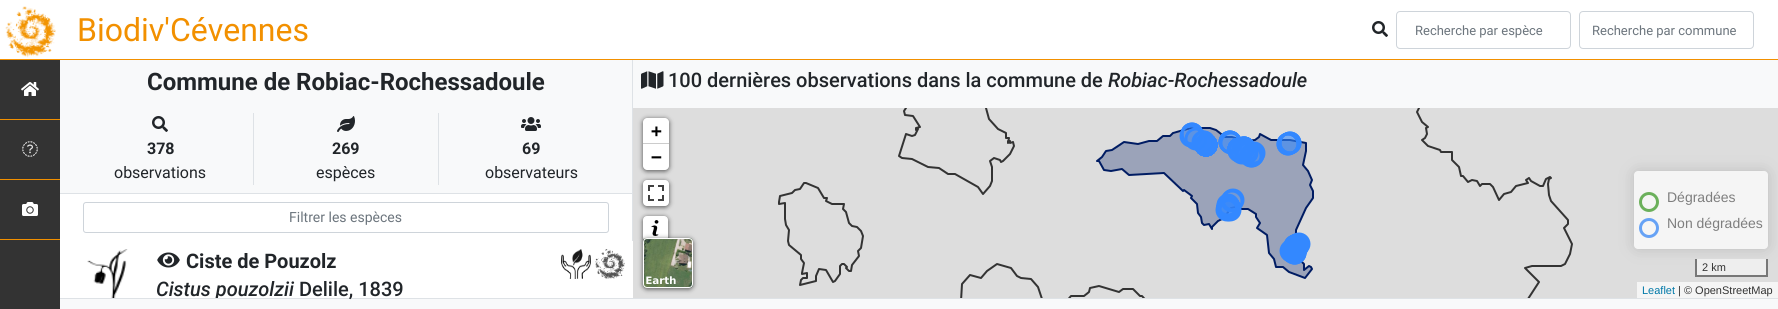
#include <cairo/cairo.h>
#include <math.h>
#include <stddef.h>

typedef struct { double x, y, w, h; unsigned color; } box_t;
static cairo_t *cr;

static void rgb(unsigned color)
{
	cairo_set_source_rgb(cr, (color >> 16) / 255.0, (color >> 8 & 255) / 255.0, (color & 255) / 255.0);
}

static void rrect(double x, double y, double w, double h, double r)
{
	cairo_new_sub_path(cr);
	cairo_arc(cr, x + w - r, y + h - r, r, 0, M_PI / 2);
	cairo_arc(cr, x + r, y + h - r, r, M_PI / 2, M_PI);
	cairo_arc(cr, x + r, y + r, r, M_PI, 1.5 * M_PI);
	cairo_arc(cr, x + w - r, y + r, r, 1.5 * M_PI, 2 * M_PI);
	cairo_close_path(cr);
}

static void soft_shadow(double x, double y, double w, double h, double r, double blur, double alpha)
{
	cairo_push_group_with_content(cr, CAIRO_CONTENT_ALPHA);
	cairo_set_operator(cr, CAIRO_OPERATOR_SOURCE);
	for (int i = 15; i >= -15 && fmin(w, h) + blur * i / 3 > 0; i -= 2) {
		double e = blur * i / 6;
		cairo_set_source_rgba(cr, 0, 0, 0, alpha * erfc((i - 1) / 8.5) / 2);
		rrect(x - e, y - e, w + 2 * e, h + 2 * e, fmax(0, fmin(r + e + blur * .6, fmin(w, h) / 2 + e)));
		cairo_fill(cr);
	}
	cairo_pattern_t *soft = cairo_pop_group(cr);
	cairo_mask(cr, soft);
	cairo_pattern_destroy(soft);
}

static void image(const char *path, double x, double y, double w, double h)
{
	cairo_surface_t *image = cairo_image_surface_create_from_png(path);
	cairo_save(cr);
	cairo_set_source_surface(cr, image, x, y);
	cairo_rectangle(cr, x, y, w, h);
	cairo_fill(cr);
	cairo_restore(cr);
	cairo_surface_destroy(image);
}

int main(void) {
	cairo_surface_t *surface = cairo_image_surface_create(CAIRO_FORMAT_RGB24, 1778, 309);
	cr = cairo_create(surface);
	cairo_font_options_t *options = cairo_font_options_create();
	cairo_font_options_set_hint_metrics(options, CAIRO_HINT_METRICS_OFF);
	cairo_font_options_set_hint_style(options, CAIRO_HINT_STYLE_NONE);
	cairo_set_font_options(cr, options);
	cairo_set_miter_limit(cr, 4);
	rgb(0xffffff);
	cairo_paint(cr);
	rgb(0xf29000);
	cairo_rectangle(cr, 0, 59, 1778, 1);
	cairo_fill(cr);
	image("img/1.png", 5, 6, 51, 52);
	image("img/2.png", 1372, 21, 16, 16);
	rrect(1396.5, 11.5, 174, 37, 3.5);
	rgb(0xced4da);
	cairo_set_line_width(cr, 1);
	cairo_stroke(cr);
	rrect(1579.5, 11.5, 174, 37, 3.5);
	cairo_stroke(cr);
	rgb(0x333333);
	cairo_rectangle(cr, 0, 60, 60, 249);
	cairo_fill(cr);
	rgb(0xf29000);
	cairo_rectangle(cr, 0, 119, 60, 1);
	cairo_fill(cr);
	image("img/3.png", 21, 82, 18, 14);
	cairo_rectangle(cr, 0, 179, 60, 1);
	cairo_fill(cr);
	image("img/4.png", 22, 141, 16, 16);
	cairo_rectangle(cr, 0, 239, 60, 1);
	cairo_fill(cr);
	image("img/5.png", 22, 202, 16, 14);
	{
		static const box_t items[] = {
			{60, 298, 1718, 1, 0xdee2e6},
			{60, 60, 572, 133, 0xf8f9fa},
			{632, 60, 1, 181, 0xdee2e6},
			{60, 193, 573, 1, 0xdee2e6},
			{253, 113, 1, 72, 0xdee2e6},
		};
		for (size_t i = 0; i < sizeof items / sizeof *items; i++) {
			rgb(items[i].color);
			cairo_rectangle(cr, items[i].x, items[i].y, items[i].w, items[i].h);
			cairo_fill(cr);
		}
	}
	image("img/6.png", 152, 116, 16, 16);
	cairo_rectangle(cr, 438, 113, 1, 72);
	cairo_fill(cr);
	image("img/7.png", 337, 116, 18, 16);
	image("img/8.png", 521, 117, 20, 14);
	rrect(83.5, 202.5, 525, 30, 2.5);
	rgb(0xced4da);
	cairo_stroke(cr);
	image("img/9.png", 87, 249, 41, 49);
	image("img/10.png", 157, 252, 23, 16);
	image("img/11.png", 561, 249, 30, 30);
	image("img/12.png", 595, 249, 30, 30);
	rgb(0xf8f9fa);
	cairo_rectangle(cr, 633, 60, 1145, 48);
	cairo_fill(cr);
	image("img/13.png", 641, 71, 23, 18);
	rgb(0xdddddd);
	cairo_rectangle(cr, 633, 108, 1145, 190);
	cairo_fill(cr);
	image("img/14.png", 778, 108, 795, 190);
	rgb(0x000000);
	soft_shadow(643, 119, 26, 52, 4, 2.5, 0.65);
	rgb(0xffffff);
	cairo_new_path(cr);
	cairo_move_to(cr, 647, 118);
	cairo_line_to(cr, 665, 118);
	cairo_curve_to(cr, 667, 118, 669, 120, 669, 122);
	cairo_line_to(cr, 669, 144);
	cairo_line_to(cr, 643, 144);
	cairo_line_to(cr, 643, 122);
	cairo_curve_to(cr, 643, 120, 645, 118, 647, 118);
	cairo_close_path(cr);
	cairo_fill(cr);
	rgb(0xcccccc);
	cairo_rectangle(cr, 643, 143, 26, 1);
	cairo_fill(cr);
	rgb(0xffffff);
	cairo_new_path(cr);
	cairo_move_to(cr, 643, 144);
	cairo_line_to(cr, 669, 144);
	cairo_line_to(cr, 669, 166);
	cairo_curve_to(cr, 669, 168, 667, 170, 665, 170);
	cairo_line_to(cr, 647, 170);
	cairo_curve_to(cr, 645, 170, 643, 168, 643, 166);
	cairo_close_path(cr);
	cairo_fill(cr);
	rgb(0x000000);
	soft_shadow(643, 181, 26, 26, 4, 2.5, 0.65);
	rgb(0xffffff);
	rrect(643, 180, 26, 26, 4);
	cairo_fill(cr);
	image("img/15.png", 648, 185, 16, 16);
	rgb(0x000000);
	soft_shadow(643, 217, 25, 25, 4, 2.5, 0.65);
	rgb(0xffffff);
	rrect(643.5, 216.5, 24, 24, 3.5);
	cairo_fill_preserve(cr);
	cairo_stroke(cr);
	image("img/16.png", 651, 220, 8, 16);
	rgb(0x000000);
	soft_shadow(643, 239, 50, 50, 4, 2.5, 0.65);
	image("img/17.png", 643, 238, 50, 50);
	rrect(643.5, 238.5, 49, 49, 3.5);
	rgb(0xffffff);
	cairo_stroke(cr);
	rgb(0x424242);
	soft_shadow(1634, 171, 134, 78, 4, 7.5, 0.2);
	rgb(0xf5f5f5);
	rrect(1634, 171, 134, 78, 4);
	cairo_fill(cr);
	cairo_arc(cr, 1649, 202, 8.5, 0, 2 * M_PI);
	rgb(0x6bb05b);
	cairo_set_line_width(cr, 3);
	cairo_stroke(cr);
	cairo_arc(cr, 1649, 228, 8.5, 0, 2 * M_PI);
	rgb(0x66a2f5);
	cairo_stroke(cr);
	{
		static const box_t items[] = {
			{1697, 259, 69, 16, 0xeeeeee},
			{1766, 259, 2, 18, 0x777777},
			{1695, 275, 73, 2, 0x777777},
			{1695, 259, 2, 18, 0x777777},
			{1637, 282, 141, 16, 0xf5f5f5},
			{60, 299, 1718, 10, 0xf8f9fa},
		};
		for (size_t i = 0; i < sizeof items / sizeof *items; i++) {
			rgb(items[i].color);
			cairo_rectangle(cr, items[i].x, items[i].y, items[i].w, items[i].h);
			cairo_fill(cr);
		}
	}
	cairo_select_font_face(cr, "Roboto", CAIRO_FONT_SLANT_NORMAL, CAIRO_FONT_WEIGHT_NORMAL);
	cairo_set_font_size(cr, 32);
	rgb(0xf29000);
	cairo_move_to(cr, 77, 41);
	cairo_show_text(cr, "Biodiv'Cévennes");
	cairo_set_font_size(cr, 13);
	rgb(0x6c757d);
	cairo_move_to(cr, 1415, 35);
	cairo_show_text(cr, "Recherche par espèce");
	cairo_move_to(cr, 1592, 35);
	cairo_show_text(cr, "Recherche par commune");
	cairo_select_font_face(cr, "Roboto", CAIRO_FONT_SLANT_NORMAL, CAIRO_FONT_WEIGHT_BOLD);
	cairo_set_font_size(cr, 24);
	rgb(0x212529);
	cairo_move_to(cr, 147, 90);
	cairo_show_text(cr, "Commune de Robiac-Rochessadoule");
	cairo_set_font_size(cr, 16);
	cairo_move_to(cr, 147, 154);
	cairo_show_text(cr, "378");
	cairo_select_font_face(cr, "Roboto", CAIRO_FONT_SLANT_NORMAL, CAIRO_FONT_WEIGHT_NORMAL);
	cairo_move_to(cr, 114, 178);
	cairo_show_text(cr, "observations");
	cairo_select_font_face(cr, "Roboto", CAIRO_FONT_SLANT_NORMAL, CAIRO_FONT_WEIGHT_BOLD);
	cairo_move_to(cr, 332, 154);
	cairo_show_text(cr, "269");
	cairo_select_font_face(cr, "Roboto", CAIRO_FONT_SLANT_NORMAL, CAIRO_FONT_WEIGHT_NORMAL);
	cairo_move_to(cr, 316, 178);
	cairo_show_text(cr, "espèces");
	cairo_select_font_face(cr, "Roboto", CAIRO_FONT_SLANT_NORMAL, CAIRO_FONT_WEIGHT_BOLD);
	cairo_move_to(cr, 522, 154);
	cairo_show_text(cr, "69");
	cairo_select_font_face(cr, "Roboto", CAIRO_FONT_SLANT_NORMAL, CAIRO_FONT_WEIGHT_NORMAL);
	cairo_move_to(cr, 485, 178);
	cairo_show_text(cr, "observateurs");
	cairo_set_font_size(cr, 14);
	rgb(0x6c757d);
	cairo_move_to(cr, 289, 222);
	cairo_show_text(cr, "Filtrer les espèces");
	cairo_select_font_face(cr, "Roboto", CAIRO_FONT_SLANT_NORMAL, CAIRO_FONT_WEIGHT_BOLD);
	cairo_set_font_size(cr, 20);
	rgb(0x212529);
	cairo_move_to(cr, 186, 268);
	cairo_show_text(cr, "Ciste de Pouzolz");
	cairo_save(cr);
	cairo_rectangle(cr, 60, 241, 573, 57);
	cairo_clip(cr);
	cairo_select_font_face(cr, "Roboto Medium", CAIRO_FONT_SLANT_ITALIC, CAIRO_FONT_WEIGHT_NORMAL);
	cairo_move_to(cr, 156, 296);
	cairo_show_text(cr, "Cistus pouzolzii");
	cairo_restore(cr);
	cairo_select_font_face(cr, "Roboto Medium", CAIRO_FONT_SLANT_NORMAL, CAIRO_FONT_WEIGHT_NORMAL);
	cairo_move_to(cr, 299, 296);
	cairo_show_text(cr, "Delile, 1839");
	cairo_move_to(cr, 668, 87);
	cairo_show_text(cr, "100 dernières observations dans la commune de");
	cairo_select_font_face(cr, "Roboto Medium", CAIRO_FONT_SLANT_ITALIC, CAIRO_FONT_WEIGHT_NORMAL);
	cairo_move_to(cr, 1108, 87);
	cairo_show_text(cr, "Robiac-Rochessadoule");
	cairo_select_font_face(cr, "DejaVu Sans Mono", CAIRO_FONT_SLANT_NORMAL, CAIRO_FONT_WEIGHT_BOLD);
	cairo_set_font_size(cr, 18);
	rgb(0x000000);
	cairo_move_to(cr, 651, 137);
	cairo_show_text(cr, "+");
	cairo_move_to(cr, 651, 163);
	cairo_show_text(cr, "−");
	cairo_select_font_face(cr, "Liberation Sans", CAIRO_FONT_SLANT_NORMAL, CAIRO_FONT_WEIGHT_NORMAL);
	cairo_set_font_size(cr, 14);
	rgb(0x7e7e7e);
	cairo_move_to(cr, 1667, 202);
	cairo_show_text(cr, "Dégradées");
	cairo_move_to(cr, 1667, 228);
	cairo_show_text(cr, "Non dégradées");
	cairo_set_font_size(cr, 11);
	rgb(0x333333);
	cairo_move_to(cr, 1702, 271);
	cairo_show_text(cr, "2 km");
	rgb(0x0078a8);
	cairo_move_to(cr, 1642, 294);
	cairo_show_text(cr, "Leaflet");
	rgb(0x333333);
	cairo_move_to(cr, 1678, 294);
	cairo_show_text(cr, "| © OpenStreetMap");
	cairo_surface_write_to_png(surface, "page.png");
	cairo_font_options_destroy(options);
	cairo_destroy(cr);
	cairo_surface_destroy(surface);
	return 0;
}
